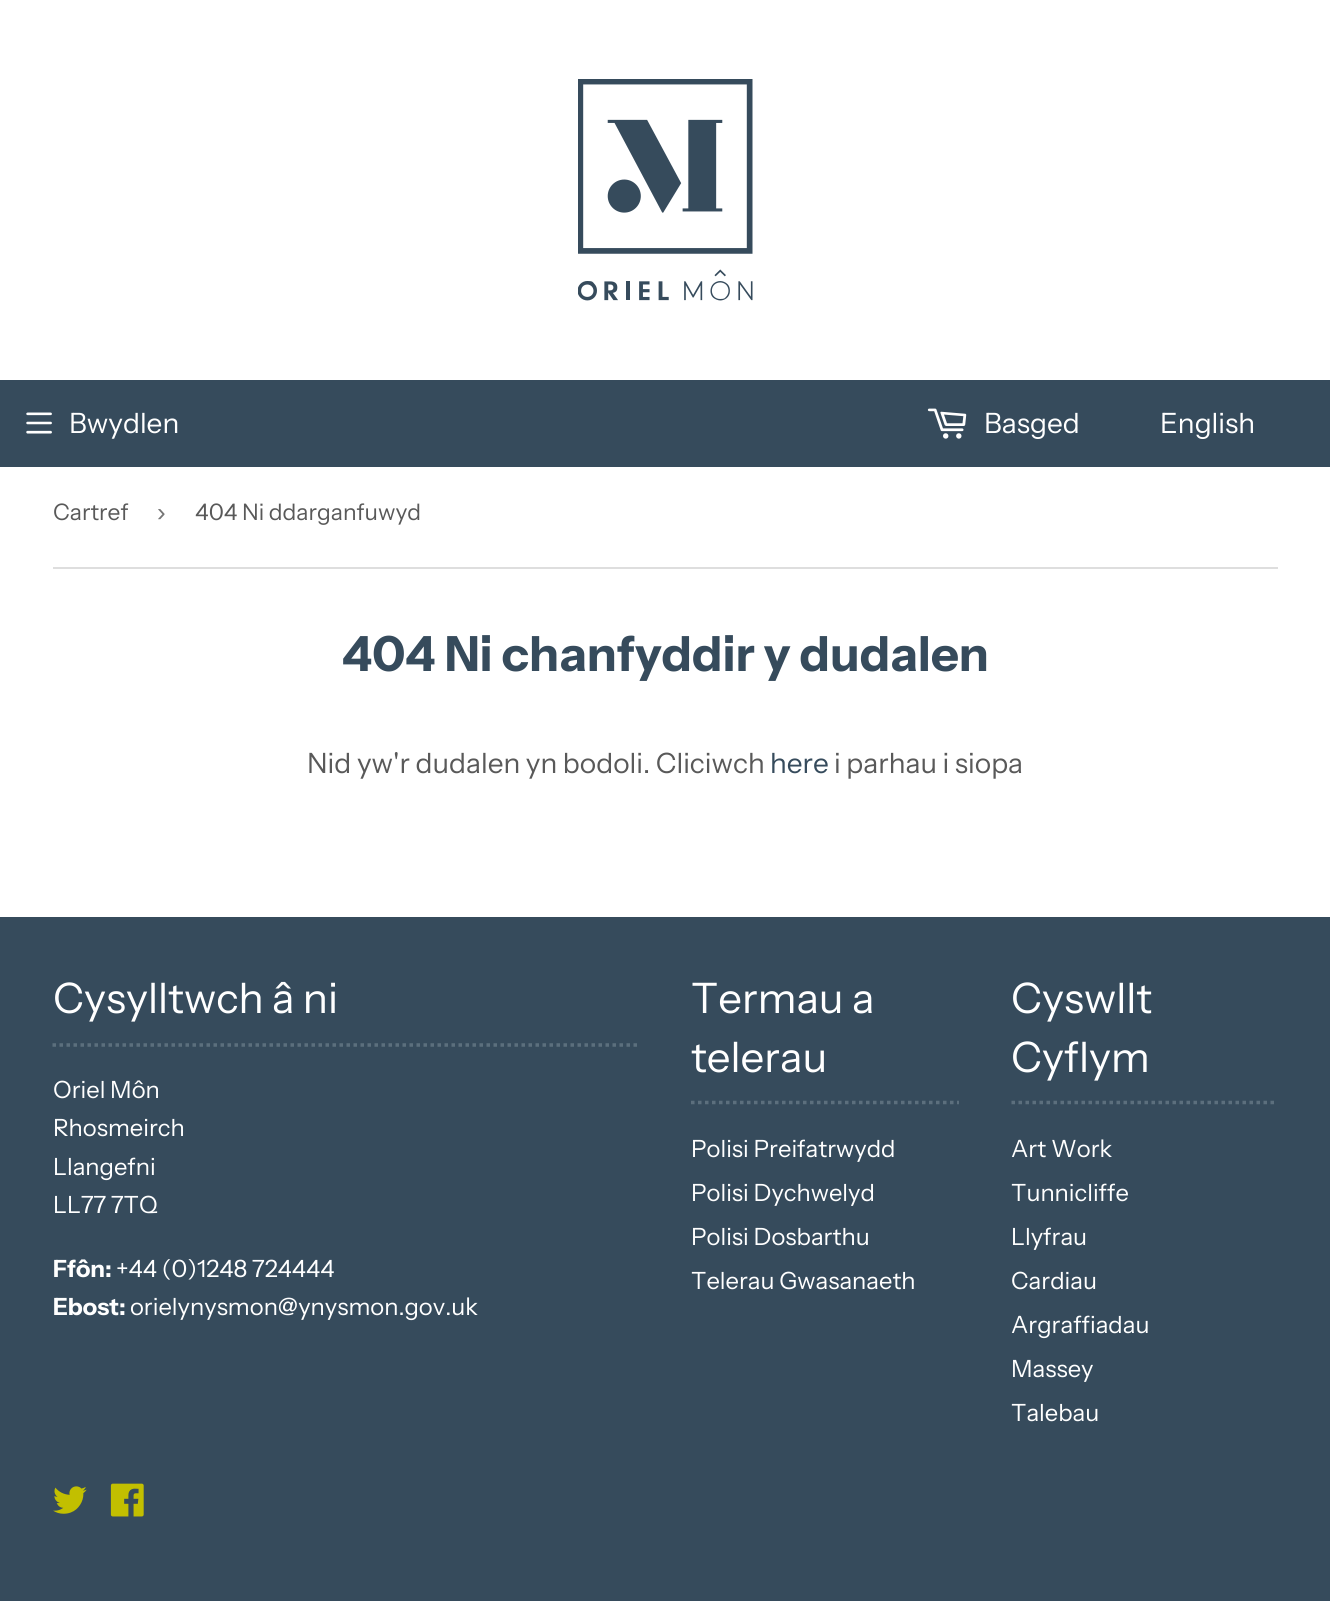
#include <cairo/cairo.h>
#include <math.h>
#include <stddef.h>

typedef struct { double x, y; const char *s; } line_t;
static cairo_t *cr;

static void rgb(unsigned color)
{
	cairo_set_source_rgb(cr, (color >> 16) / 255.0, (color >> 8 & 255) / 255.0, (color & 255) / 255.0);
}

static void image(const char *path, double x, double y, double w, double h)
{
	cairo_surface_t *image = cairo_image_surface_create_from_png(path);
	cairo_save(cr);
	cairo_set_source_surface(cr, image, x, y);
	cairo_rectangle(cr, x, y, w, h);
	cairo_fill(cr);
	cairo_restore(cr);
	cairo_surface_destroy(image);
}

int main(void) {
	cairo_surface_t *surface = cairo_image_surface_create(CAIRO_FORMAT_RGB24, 1330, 1601);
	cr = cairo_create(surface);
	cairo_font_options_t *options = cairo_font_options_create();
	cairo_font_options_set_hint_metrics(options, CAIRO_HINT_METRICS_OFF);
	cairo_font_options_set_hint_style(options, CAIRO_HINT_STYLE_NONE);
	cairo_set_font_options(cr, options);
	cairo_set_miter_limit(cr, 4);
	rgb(0xffffff);
	cairo_paint(cr);
	image("img/1.png", 578, 79, 175, 222);
	rgb(0x364b5c);
	cairo_rectangle(cr, 0, 380, 1330, 87);
	cairo_fill(cr);
	image("img/2.png", 26, 412, 26, 22);
	image("img/3.png", 927, 408, 40, 31);
	rgb(0xdedede);
	cairo_rectangle(cr, 53, 567, 1225, 2);
	cairo_fill(cr);
	rgb(0x364b5c);
	cairo_rectangle(cr, 0, 917, 1330, 684);
	cairo_fill(cr);
	cairo_new_path(cr);
	cairo_move_to(cr, 52.5, 1045);
	cairo_line_to(cr, 639, 1045);
	rgb(0x5c6f7d);
	cairo_set_line_width(cr, 3.5);
	cairo_set_dash(cr, (double[]){3.5, 3.5}, 2, 0);
	cairo_stroke(cr);
	cairo_new_path(cr);
	cairo_move_to(cr, 691, 1102.5);
	cairo_line_to(cr, 959, 1102.5);
	cairo_stroke(cr);
	cairo_new_path(cr);
	cairo_move_to(cr, 1011.5, 1102.5);
	cairo_line_to(cr, 1277.5, 1102.5);
	cairo_stroke(cr);
	image("img/4.png", 53, 1486, 34, 28);
	image("img/5.png", 110, 1483, 34, 34);
	cairo_select_font_face(cr, "Instrument Sans", CAIRO_FONT_SLANT_NORMAL, CAIRO_FONT_WEIGHT_NORMAL);
	cairo_set_font_size(cr, 28);
	rgb(0xffffff);
	{
		static const line_t items[] = {
			{69, 433, "Bwydlen"},
			{984, 433, "Basged"},
			{1160, 433, "English"},
		};
		for (size_t i = 0; i < sizeof items / sizeof *items; i++) {
			cairo_move_to(cr, items[i].x, items[i].y);
			cairo_show_text(cr, items[i].s);
		}
	}
	cairo_set_font_size(cr, 22.75);
	rgb(0x595959);
	cairo_move_to(cr, 53, 520);
	cairo_show_text(cr, "Cartref");
	cairo_select_font_face(cr, "Liberation Sans", CAIRO_FONT_SLANT_NORMAL, CAIRO_FONT_WEIGHT_NORMAL);
	cairo_set_font_size(cr, 26);
	rgb(0x767676);
	cairo_move_to(cr, 157, 521);
	cairo_show_text(cr, "›");
	cairo_select_font_face(cr, "Instrument Sans", CAIRO_FONT_SLANT_NORMAL, CAIRO_FONT_WEIGHT_NORMAL);
	cairo_set_font_size(cr, 22.75);
	rgb(0x595959);
	cairo_move_to(cr, 195, 520);
	cairo_show_text(cr, "404 Ni ddarganfuwyd");
	cairo_select_font_face(cr, "Instrument Sans", CAIRO_FONT_SLANT_NORMAL, CAIRO_FONT_WEIGHT_BOLD);
	cairo_set_font_size(cr, 48.5);
	rgb(0x364b5c);
	cairo_move_to(cr, 342, 671);
	cairo_show_text(cr, "404 Ni chanfyddir y dudalen");
	cairo_select_font_face(cr, "Instrument Sans", CAIRO_FONT_SLANT_NORMAL, CAIRO_FONT_WEIGHT_NORMAL);
	cairo_set_font_size(cr, 28);
	rgb(0x595959);
	cairo_move_to(cr, 307, 773);
	cairo_show_text(cr, "Nid yw'r dudalen yn bodoli. Cliciwch");
	rgb(0x364b5c);
	cairo_move_to(cr, 770, 773);
	cairo_show_text(cr, "here");
	rgb(0x595959);
	cairo_move_to(cr, 834, 773);
	cairo_show_text(cr, "i parhau i siopa");
	cairo_set_font_size(cr, 42);
	rgb(0xffffff);
	cairo_move_to(cr, 53, 1013);
	cairo_show_text(cr, "Cysylltwch â ni");
	cairo_set_font_size(cr, 23.75);
	{
		static const line_t items[] = {
			{53, 1098, "Oriel Môn"},
			{53, 1136, "Rhosmeirch"},
			{53, 1175, "Llangefni"},
			{53, 1213, "LL77 7TQ"},
		};
		for (size_t i = 0; i < sizeof items / sizeof *items; i++) {
			cairo_move_to(cr, items[i].x, items[i].y);
			cairo_show_text(cr, items[i].s);
		}
	}
	cairo_select_font_face(cr, "Instrument Sans", CAIRO_FONT_SLANT_NORMAL, CAIRO_FONT_WEIGHT_BOLD);
	cairo_move_to(cr, 53, 1277);
	cairo_show_text(cr, "Ffôn:");
	cairo_select_font_face(cr, "Instrument Sans", CAIRO_FONT_SLANT_NORMAL, CAIRO_FONT_WEIGHT_NORMAL);
	cairo_move_to(cr, 116, 1277);
	cairo_show_text(cr, "+44 (0)1248 724444");
	cairo_select_font_face(cr, "Instrument Sans", CAIRO_FONT_SLANT_NORMAL, CAIRO_FONT_WEIGHT_BOLD);
	cairo_move_to(cr, 53, 1315);
	cairo_show_text(cr, "Ebost:");
	cairo_select_font_face(cr, "Instrument Sans", CAIRO_FONT_SLANT_NORMAL, CAIRO_FONT_WEIGHT_NORMAL);
	cairo_move_to(cr, 130, 1315);
	cairo_show_text(cr, "orielynysmon@ynysmon.gov.uk");
	cairo_set_font_size(cr, 42);
	cairo_move_to(cr, 691, 1013);
	cairo_show_text(cr, "Termau a");
	cairo_move_to(cr, 691, 1072);
	cairo_show_text(cr, "telerau");
	cairo_set_font_size(cr, 23.75);
	{
		static const line_t items[] = {
			{691, 1157, "Polisi Preifatrwydd"},
			{691, 1201, "Polisi Dychwelyd"},
			{691, 1245, "Polisi Dosbarthu"},
			{691, 1289, "Telerau Gwasanaeth"},
		};
		for (size_t i = 0; i < sizeof items / sizeof *items; i++) {
			cairo_move_to(cr, items[i].x, items[i].y);
			cairo_show_text(cr, items[i].s);
		}
	}
	cairo_set_font_size(cr, 42);
	cairo_move_to(cr, 1011, 1013);
	cairo_show_text(cr, "Cyswllt");
	cairo_move_to(cr, 1011, 1072);
	cairo_show_text(cr, "Cyflym");
	cairo_set_font_size(cr, 23.75);
	{
		static const line_t items[] = {
			{1011, 1157, "Art Work"},
			{1011, 1201, "Tunnicliffe"},
			{1011, 1245, "Llyfrau"},
			{1011, 1289, "Cardiau"},
			{1011, 1333, "Argraffiadau"},
			{1011, 1377, "Massey"},
			{1011, 1421, "Talebau"},
		};
		for (size_t i = 0; i < sizeof items / sizeof *items; i++) {
			cairo_move_to(cr, items[i].x, items[i].y);
			cairo_show_text(cr, items[i].s);
		}
	}
	cairo_surface_write_to_png(surface, "page.png");
	cairo_font_options_destroy(options);
	cairo_destroy(cr);
	cairo_surface_destroy(surface);
	return 0;
}
